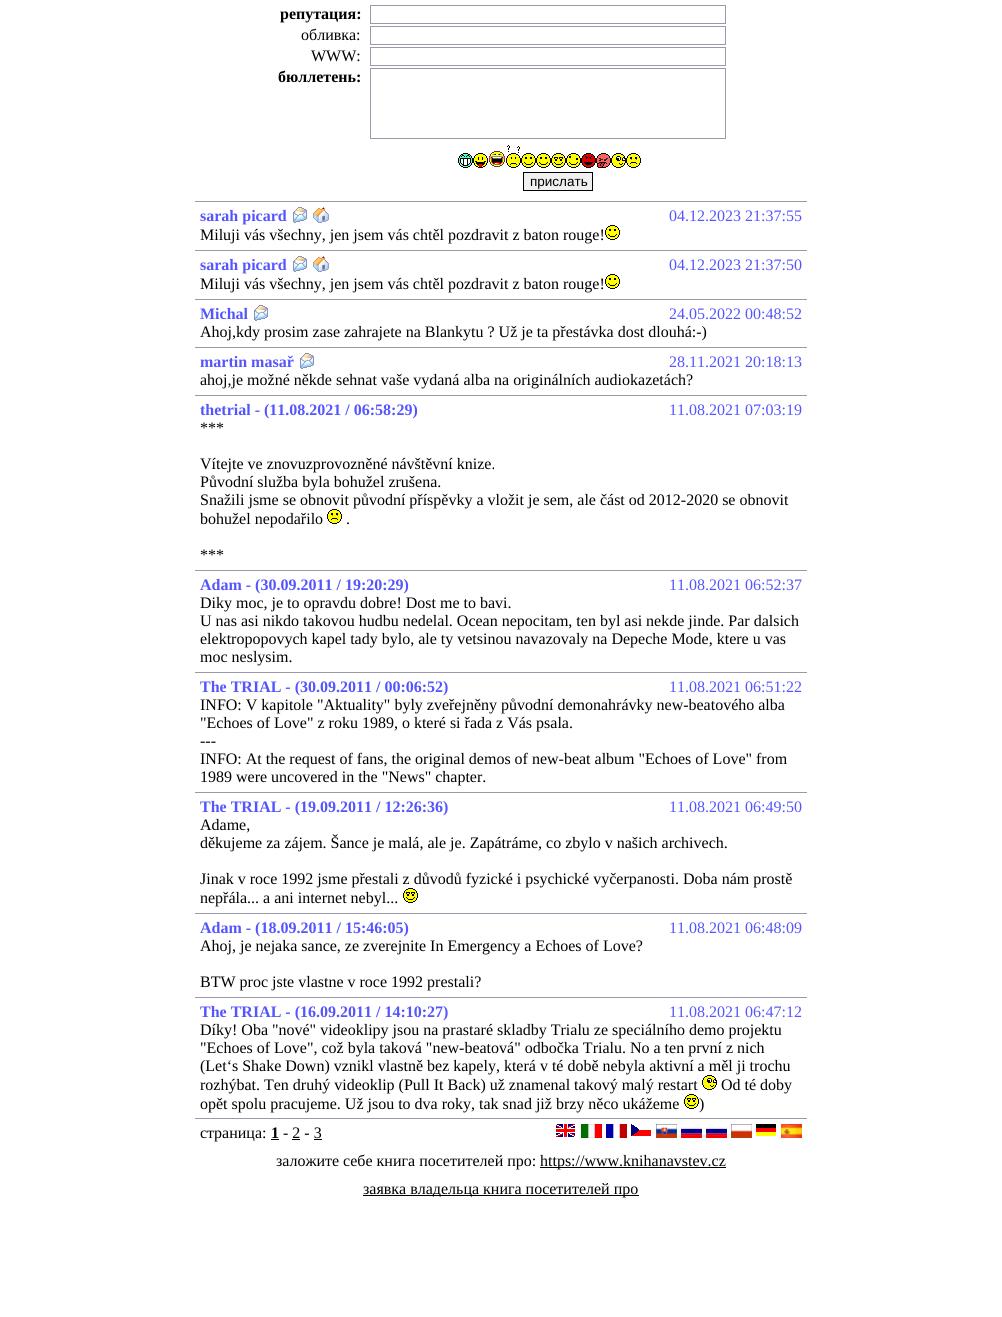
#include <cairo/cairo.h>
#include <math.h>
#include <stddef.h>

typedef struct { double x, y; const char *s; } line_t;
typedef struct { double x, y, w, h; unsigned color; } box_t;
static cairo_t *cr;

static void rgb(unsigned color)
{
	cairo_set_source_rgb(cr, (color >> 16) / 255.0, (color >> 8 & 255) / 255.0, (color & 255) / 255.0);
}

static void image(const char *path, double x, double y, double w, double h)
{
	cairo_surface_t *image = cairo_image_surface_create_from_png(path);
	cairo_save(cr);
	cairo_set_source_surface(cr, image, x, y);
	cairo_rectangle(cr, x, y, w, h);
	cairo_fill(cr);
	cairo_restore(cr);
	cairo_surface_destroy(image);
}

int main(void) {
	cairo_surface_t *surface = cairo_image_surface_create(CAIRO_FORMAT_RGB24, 1002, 1317);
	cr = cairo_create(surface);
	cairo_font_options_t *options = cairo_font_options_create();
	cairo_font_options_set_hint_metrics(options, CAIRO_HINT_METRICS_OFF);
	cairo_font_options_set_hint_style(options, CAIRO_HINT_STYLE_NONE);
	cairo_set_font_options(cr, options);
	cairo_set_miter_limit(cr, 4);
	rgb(0xffffff);
	cairo_paint(cr);
	cairo_rectangle(cr, 370.5, 5.5, 355, 18);
	rgb(0x9999aa);
	cairo_set_line_width(cr, 1);
	cairo_stroke(cr);
	cairo_rectangle(cr, 370.5, 26.5, 355, 18);
	cairo_stroke(cr);
	cairo_rectangle(cr, 370.5, 47.5, 355, 18);
	cairo_stroke(cr);
	cairo_rectangle(cr, 370.5, 68.5, 355, 70);
	cairo_stroke(cr);
	image("img/1.png", 458, 153, 15, 15);
	image("img/2.png", 473, 153, 15, 15);
	image("img/3.png", 489, 151, 16, 16);
	image("img/4.png", 506, 145, 15, 23);
	image("img/5.png", 521, 153, 15, 15);
	image("img/5.png", 536, 153, 15, 15);
	image("img/6.png", 551, 153, 15, 15);
	image("img/7.png", 566, 153, 15, 15);
	image("img/8.png", 581, 153, 15, 15);
	image("img/9.png", 596, 153, 15, 15);
	image("img/10.png", 611, 153, 15, 15);
	image("img/11.png", 626, 153, 15, 15);
	rgb(0xf0f0f0);
	cairo_rectangle(cr, 523.5, 172.5, 69, 18);
	cairo_fill_preserve(cr);
	rgb(0x000000);
	cairo_stroke(cr);
	rgb(0x9999aa);
	cairo_rectangle(cr, 195, 201, 612, 1);
	cairo_fill(cr);
	image("img/12.png", 293, 207, 14, 16);
	image("img/13.png", 313, 207, 16, 16);
	image("img/5.png", 605, 225, 15, 15);
	cairo_rectangle(cr, 195, 250, 612, 1);
	cairo_fill(cr);
	image("img/12.png", 293, 256, 14, 16);
	image("img/13.png", 313, 256, 16, 16);
	image("img/5.png", 605, 274, 15, 15);
	cairo_rectangle(cr, 195, 299, 612, 1);
	cairo_fill(cr);
	image("img/12.png", 254, 305, 14, 16);
	cairo_rectangle(cr, 195, 347, 612, 1);
	cairo_fill(cr);
	image("img/12.png", 300, 353, 14, 16);
	cairo_rectangle(cr, 195, 395, 612, 1);
	cairo_fill(cr);
	image("img/11.png", 327, 509, 15, 15);
	{
		static const box_t items[] = {
			{195, 570, 612, 1, 0x9999aa},
			{195, 672, 612, 1, 0x9999aa},
			{195, 792, 612, 1, 0x9999aa},
		};
		for (size_t i = 0; i < sizeof items / sizeof *items; i++) {
			rgb(items[i].color);
			cairo_rectangle(cr, items[i].x, items[i].y, items[i].w, items[i].h);
			cairo_fill(cr);
		}
	}
	image("img/6.png", 403, 888, 15, 15);
	cairo_rectangle(cr, 195, 913, 612, 1);
	cairo_fill(cr);
	cairo_rectangle(cr, 195, 997, 612, 1);
	cairo_fill(cr);
	image("img/10.png", 702, 1075, 15, 15);
	image("img/6.png", 684, 1094, 15, 15);
	{
		static const box_t items[] = {
			{195, 1118, 612, 1, 0x9999aa},
			{271, 1139, 8, 1, 0x000000},
			{292, 1139, 8, 1, 0x000000},
			{314, 1139, 8, 1, 0x000000},
		};
		for (size_t i = 0; i < sizeof items / sizeof *items; i++) {
			rgb(items[i].color);
			cairo_rectangle(cr, items[i].x, items[i].y, items[i].w, items[i].h);
			cairo_fill(cr);
		}
	}
	image("img/14.png", 556, 1124, 19, 13);
	image("img/15.png", 581, 1124, 21, 14);
	image("img/16.png", 606, 1124, 21, 14);
	image("img/17.png", 631, 1124, 20, 12);
	image("img/18.png", 656, 1124, 21, 14);
	image("img/19.png", 681, 1124, 21, 14);
	image("img/19.png", 706, 1124, 21, 14);
	image("img/20.png", 731, 1124, 21, 14);
	image("img/21.png", 756, 1124, 20, 12);
	image("img/22.png", 781, 1124, 21, 14);
	cairo_rectangle(cr, 540, 1167, 186, 1);
	cairo_fill(cr);
	cairo_rectangle(cr, 363, 1195, 276, 1);
	cairo_fill(cr);
	cairo_select_font_face(cr, "Liberation Serif", CAIRO_FONT_SLANT_NORMAL, CAIRO_FONT_WEIGHT_BOLD);
	cairo_set_font_size(cr, 16);
	cairo_move_to(cr, 280, 19);
	cairo_show_text(cr, "репутация:");
	cairo_select_font_face(cr, "Liberation Serif", CAIRO_FONT_SLANT_NORMAL, CAIRO_FONT_WEIGHT_NORMAL);
	cairo_move_to(cr, 301, 40);
	cairo_show_text(cr, "обливка:");
	cairo_move_to(cr, 311, 61);
	cairo_show_text(cr, "WWW:");
	cairo_select_font_face(cr, "Liberation Serif", CAIRO_FONT_SLANT_NORMAL, CAIRO_FONT_WEIGHT_BOLD);
	cairo_move_to(cr, 278, 82);
	cairo_show_text(cr, "бюллетень:");
	cairo_select_font_face(cr, "Liberation Sans", CAIRO_FONT_SLANT_NORMAL, CAIRO_FONT_WEIGHT_NORMAL);
	cairo_set_font_size(cr, 13.5);
	cairo_move_to(cr, 530, 186);
	cairo_show_text(cr, "прислать");
	cairo_select_font_face(cr, "Liberation Serif", CAIRO_FONT_SLANT_NORMAL, CAIRO_FONT_WEIGHT_BOLD);
	cairo_set_font_size(cr, 16);
	rgb(0x5555ff);
	cairo_move_to(cr, 200, 221);
	cairo_show_text(cr, "sarah picard");
	cairo_select_font_face(cr, "Liberation Serif", CAIRO_FONT_SLANT_NORMAL, CAIRO_FONT_WEIGHT_NORMAL);
	cairo_move_to(cr, 669, 221);
	cairo_show_text(cr, "04.12.2023 21:37:55");
	rgb(0x000000);
	cairo_move_to(cr, 200, 240);
	cairo_show_text(cr, "Miluji vás všechny, jen jsem vás chtěl pozdravit z baton rouge!");
	cairo_select_font_face(cr, "Liberation Serif", CAIRO_FONT_SLANT_NORMAL, CAIRO_FONT_WEIGHT_BOLD);
	rgb(0x5555ff);
	cairo_move_to(cr, 200, 270);
	cairo_show_text(cr, "sarah picard");
	cairo_select_font_face(cr, "Liberation Serif", CAIRO_FONT_SLANT_NORMAL, CAIRO_FONT_WEIGHT_NORMAL);
	cairo_move_to(cr, 669, 270);
	cairo_show_text(cr, "04.12.2023 21:37:50");
	rgb(0x000000);
	cairo_move_to(cr, 200, 289);
	cairo_show_text(cr, "Miluji vás všechny, jen jsem vás chtěl pozdravit z baton rouge!");
	cairo_select_font_face(cr, "Liberation Serif", CAIRO_FONT_SLANT_NORMAL, CAIRO_FONT_WEIGHT_BOLD);
	rgb(0x5555ff);
	cairo_move_to(cr, 200, 319);
	cairo_show_text(cr, "Michal");
	cairo_select_font_face(cr, "Liberation Serif", CAIRO_FONT_SLANT_NORMAL, CAIRO_FONT_WEIGHT_NORMAL);
	cairo_move_to(cr, 669, 319);
	cairo_show_text(cr, "24.05.2022 00:48:52");
	rgb(0x000000);
	cairo_move_to(cr, 200, 337);
	cairo_show_text(cr, "Ahoj,kdy prosim zase zahrajete na Blankytu ? Už je ta přestávka dost dlouhá:-)");
	cairo_select_font_face(cr, "Liberation Serif", CAIRO_FONT_SLANT_NORMAL, CAIRO_FONT_WEIGHT_BOLD);
	rgb(0x5555ff);
	cairo_move_to(cr, 200, 367);
	cairo_show_text(cr, "martin masař");
	cairo_select_font_face(cr, "Liberation Serif", CAIRO_FONT_SLANT_NORMAL, CAIRO_FONT_WEIGHT_NORMAL);
	cairo_move_to(cr, 669, 367);
	cairo_show_text(cr, "28.11.2021 20:18:13");
	rgb(0x000000);
	cairo_move_to(cr, 200, 385);
	cairo_show_text(cr, "ahoj,je možné někde sehnat vaše vydaná alba na originálních audiokazetách?");
	cairo_select_font_face(cr, "Liberation Serif", CAIRO_FONT_SLANT_NORMAL, CAIRO_FONT_WEIGHT_BOLD);
	rgb(0x5555ff);
	cairo_move_to(cr, 200, 415);
	cairo_show_text(cr, "thetrial - (11.08.2021 / 06:58:29)");
	cairo_select_font_face(cr, "Liberation Serif", CAIRO_FONT_SLANT_NORMAL, CAIRO_FONT_WEIGHT_NORMAL);
	cairo_move_to(cr, 669, 415);
	cairo_show_text(cr, "11.08.2021 07:03:19");
	rgb(0x000000);
	{
		static const line_t items[] = {
			{200, 433, "***"},
			{200, 469, "Vítejte ve znovuzprovozněné návštěvní knize."},
			{200, 487, "Původní služba byla bohužel zrušena."},
			{200, 505, "Snažili jsme se obnovit původní příspěvky a vložit je sem, ale část od 2012-2020 se obnovit"},
			{200, 524, "bohužel nepodařilo"},
			{346, 524, "."},
			{200, 560, "***"},
		};
		for (size_t i = 0; i < sizeof items / sizeof *items; i++) {
			cairo_move_to(cr, items[i].x, items[i].y);
			cairo_show_text(cr, items[i].s);
		}
	}
	cairo_select_font_face(cr, "Liberation Serif", CAIRO_FONT_SLANT_NORMAL, CAIRO_FONT_WEIGHT_BOLD);
	rgb(0x5555ff);
	cairo_move_to(cr, 200, 590);
	cairo_show_text(cr, "Adam - (30.09.2011 / 19:20:29)");
	cairo_select_font_face(cr, "Liberation Serif", CAIRO_FONT_SLANT_NORMAL, CAIRO_FONT_WEIGHT_NORMAL);
	cairo_move_to(cr, 669, 590);
	cairo_show_text(cr, "11.08.2021 06:52:37");
	rgb(0x000000);
	{
		static const line_t items[] = {
			{200, 608, "Diky moc, je to opravdu dobre! Dost me to bavi."},
			{200, 626, "U nas asi nikdo takovou hudbu nedelal. Ocean nepocitam, ten byl asi nekde jinde. Par dalsich"},
			{200, 644, "elektropopovych kapel tady bylo, ale ty vetsinou navazovaly na Depeche Mode, ktere u vas"},
			{200, 662, "moc neslysim."},
		};
		for (size_t i = 0; i < sizeof items / sizeof *items; i++) {
			cairo_move_to(cr, items[i].x, items[i].y);
			cairo_show_text(cr, items[i].s);
		}
	}
	cairo_select_font_face(cr, "Liberation Serif", CAIRO_FONT_SLANT_NORMAL, CAIRO_FONT_WEIGHT_BOLD);
	rgb(0x5555ff);
	cairo_move_to(cr, 200, 692);
	cairo_show_text(cr, "The TRIAL - (30.09.2011 / 00:06:52)");
	cairo_select_font_face(cr, "Liberation Serif", CAIRO_FONT_SLANT_NORMAL, CAIRO_FONT_WEIGHT_NORMAL);
	cairo_move_to(cr, 669, 692);
	cairo_show_text(cr, "11.08.2021 06:51:22");
	rgb(0x000000);
	{
		static const line_t items[] = {
			{200, 710, "INFO: V kapitole \"Aktuality\" byly zveřejněny původní demonahrávky new-beatového alba"},
			{200, 728, "\"Echoes of Love\" z roku 1989, o které si řada z Vás psala."},
			{200, 746, "---"},
			{200, 764, "INFO: At the request of fans, the original demos of new-beat album \"Echoes of Love\" from"},
			{200, 782, "1989 were uncovered in the \"News\" chapter."},
		};
		for (size_t i = 0; i < sizeof items / sizeof *items; i++) {
			cairo_move_to(cr, items[i].x, items[i].y);
			cairo_show_text(cr, items[i].s);
		}
	}
	cairo_select_font_face(cr, "Liberation Serif", CAIRO_FONT_SLANT_NORMAL, CAIRO_FONT_WEIGHT_BOLD);
	rgb(0x5555ff);
	cairo_move_to(cr, 200, 812);
	cairo_show_text(cr, "The TRIAL - (19.09.2011 / 12:26:36)");
	cairo_select_font_face(cr, "Liberation Serif", CAIRO_FONT_SLANT_NORMAL, CAIRO_FONT_WEIGHT_NORMAL);
	cairo_move_to(cr, 669, 812);
	cairo_show_text(cr, "11.08.2021 06:49:50");
	rgb(0x000000);
	{
		static const line_t items[] = {
			{200, 830, "Adame,"},
			{200, 848, "děkujeme za zájem. Šance je malá, ale je. Zapátráme, co zbylo v našich archivech."},
			{200, 884, "Jinak v roce 1992 jsme přestali z důvodů fyzické i psychické vyčerpanosti. Doba nám prostě"},
			{200, 903, "nepřála... a ani internet nebyl..."},
		};
		for (size_t i = 0; i < sizeof items / sizeof *items; i++) {
			cairo_move_to(cr, items[i].x, items[i].y);
			cairo_show_text(cr, items[i].s);
		}
	}
	cairo_select_font_face(cr, "Liberation Serif", CAIRO_FONT_SLANT_NORMAL, CAIRO_FONT_WEIGHT_BOLD);
	rgb(0x5555ff);
	cairo_move_to(cr, 200, 933);
	cairo_show_text(cr, "Adam - (18.09.2011 / 15:46:05)");
	cairo_select_font_face(cr, "Liberation Serif", CAIRO_FONT_SLANT_NORMAL, CAIRO_FONT_WEIGHT_NORMAL);
	cairo_move_to(cr, 669, 933);
	cairo_show_text(cr, "11.08.2021 06:48:09");
	rgb(0x000000);
	cairo_move_to(cr, 200, 951);
	cairo_show_text(cr, "Ahoj, je nejaka sance, ze zverejnite In Emergency a Echoes of Love?");
	cairo_move_to(cr, 200, 987);
	cairo_show_text(cr, "BTW proc jste vlastne v roce 1992 prestali?");
	cairo_select_font_face(cr, "Liberation Serif", CAIRO_FONT_SLANT_NORMAL, CAIRO_FONT_WEIGHT_BOLD);
	rgb(0x5555ff);
	cairo_move_to(cr, 200, 1017);
	cairo_show_text(cr, "The TRIAL - (16.09.2011 / 14:10:27)");
	cairo_select_font_face(cr, "Liberation Serif", CAIRO_FONT_SLANT_NORMAL, CAIRO_FONT_WEIGHT_NORMAL);
	cairo_move_to(cr, 669, 1017);
	cairo_show_text(cr, "11.08.2021 06:47:12");
	rgb(0x000000);
	{
		static const line_t items[] = {
			{200, 1035, "Díky! Oba \"nové\" videoklipy jsou na prastaré skladby Trialu ze speciálního demo projektu"},
			{200, 1053, "\"Echoes of Love\", což byla taková \"new-beatová\" odbočka Trialu. No a ten první z nich"},
			{200, 1071, "(Let‘s Shake Down) vznikl vlastně bez kapely, která v té době nebyla aktivní a měl ji trochu"},
			{200, 1090, "rozhýbat. Ten druhý videoklip (Pull It Back) už znamenal takový malý restart"},
			{721, 1090, "Od té doby"},
			{200, 1109, "opět spolu pracujeme. Už jsou to dva roky, tak snad již brzy něco ukážeme"},
			{699, 1109, ")"},
			{200, 1138, "страница:"},
		};
		for (size_t i = 0; i < sizeof items / sizeof *items; i++) {
			cairo_move_to(cr, items[i].x, items[i].y);
			cairo_show_text(cr, items[i].s);
		}
	}
	cairo_select_font_face(cr, "Liberation Serif", CAIRO_FONT_SLANT_NORMAL, CAIRO_FONT_WEIGHT_BOLD);
	cairo_move_to(cr, 271, 1138);
	cairo_show_text(cr, "1");
	cairo_select_font_face(cr, "Liberation Serif", CAIRO_FONT_SLANT_NORMAL, CAIRO_FONT_WEIGHT_NORMAL);
	{
		static const line_t items[] = {
			{283, 1138, "- 2 - 3"},
			{276, 1166, "заложите себе книга посетителей про:"},
			{540, 1166, "https://www.knihanavstev.cz"},
			{363, 1194, "заявка владельца книга посетителей про"},
		};
		for (size_t i = 0; i < sizeof items / sizeof *items; i++) {
			cairo_move_to(cr, items[i].x, items[i].y);
			cairo_show_text(cr, items[i].s);
		}
	}
	cairo_surface_write_to_png(surface, "page.png");
	cairo_font_options_destroy(options);
	cairo_destroy(cr);
	cairo_surface_destroy(surface);
	return 0;
}
